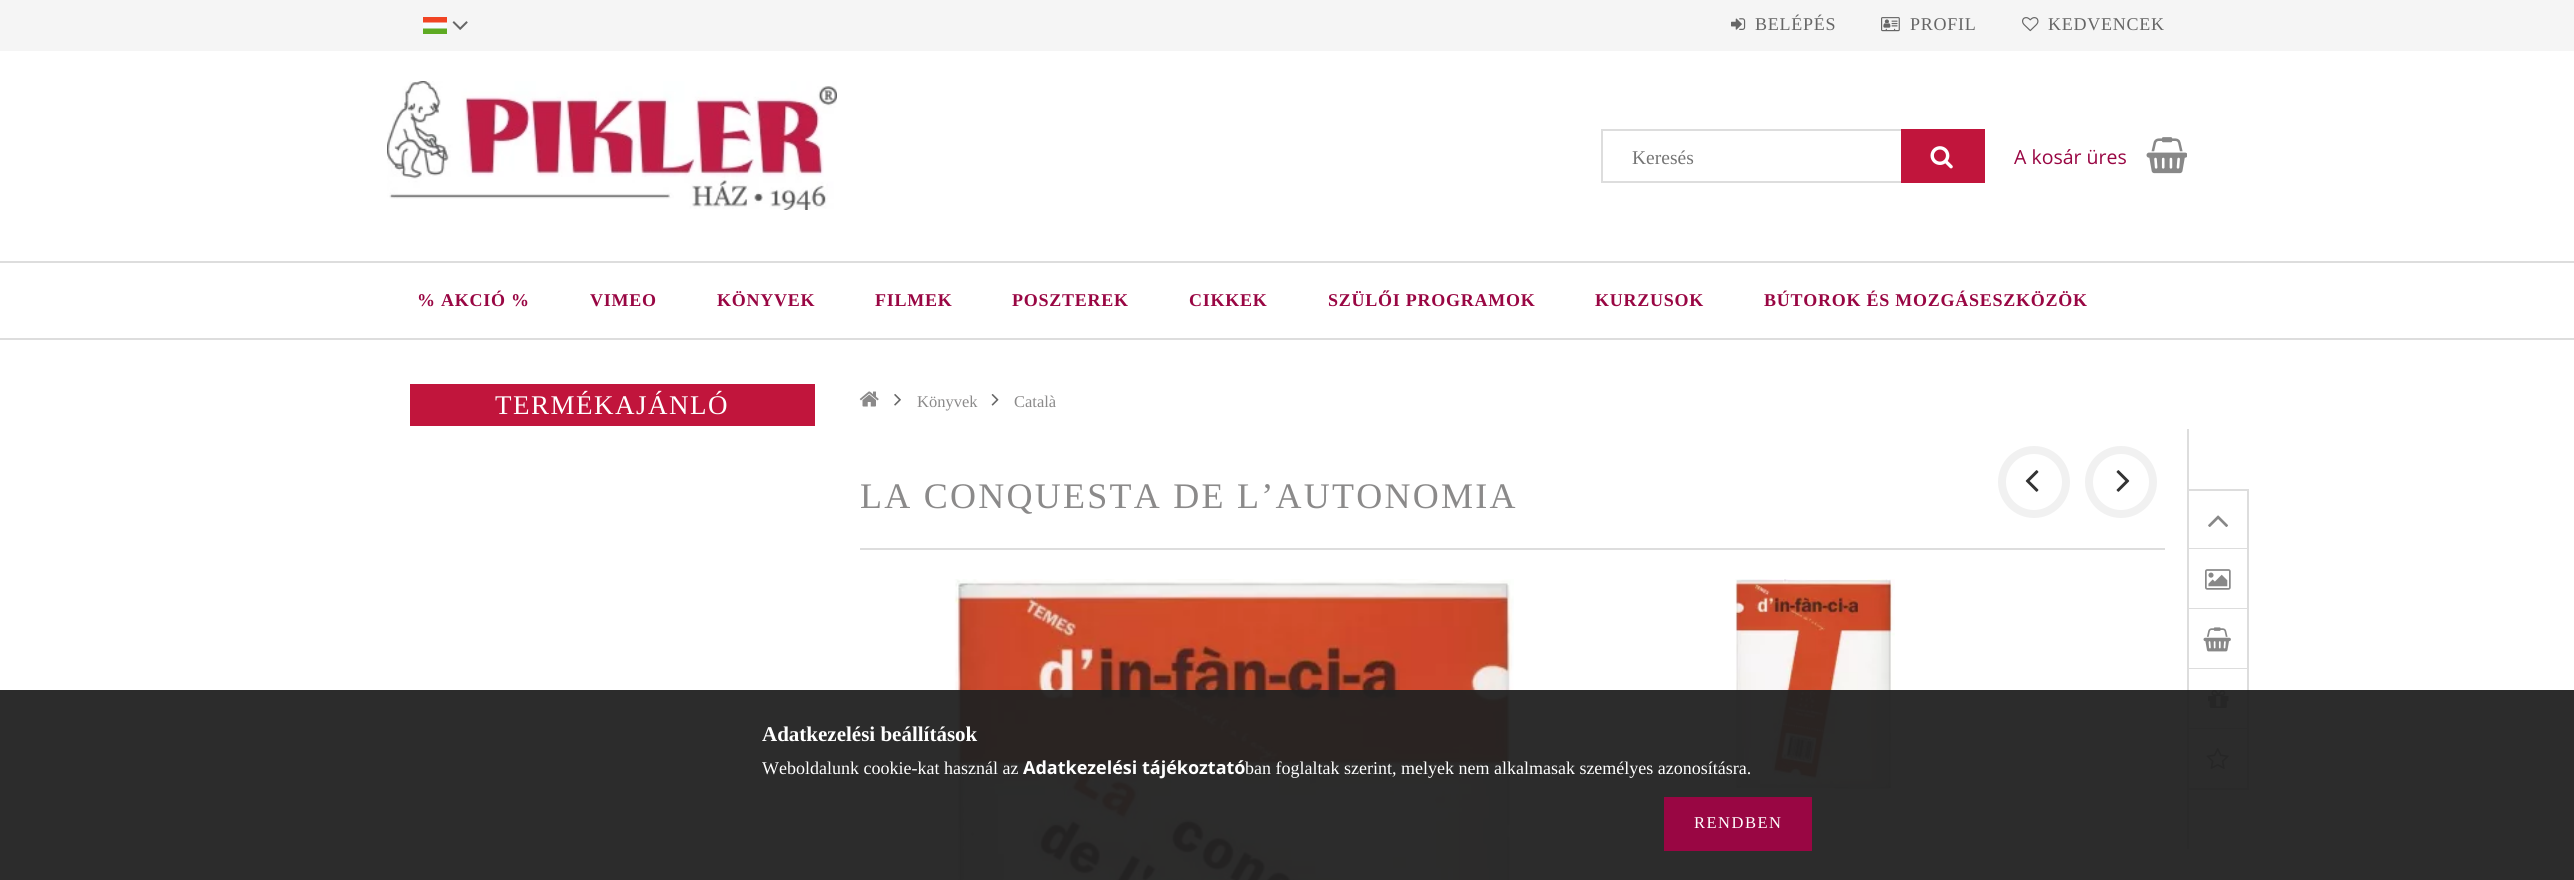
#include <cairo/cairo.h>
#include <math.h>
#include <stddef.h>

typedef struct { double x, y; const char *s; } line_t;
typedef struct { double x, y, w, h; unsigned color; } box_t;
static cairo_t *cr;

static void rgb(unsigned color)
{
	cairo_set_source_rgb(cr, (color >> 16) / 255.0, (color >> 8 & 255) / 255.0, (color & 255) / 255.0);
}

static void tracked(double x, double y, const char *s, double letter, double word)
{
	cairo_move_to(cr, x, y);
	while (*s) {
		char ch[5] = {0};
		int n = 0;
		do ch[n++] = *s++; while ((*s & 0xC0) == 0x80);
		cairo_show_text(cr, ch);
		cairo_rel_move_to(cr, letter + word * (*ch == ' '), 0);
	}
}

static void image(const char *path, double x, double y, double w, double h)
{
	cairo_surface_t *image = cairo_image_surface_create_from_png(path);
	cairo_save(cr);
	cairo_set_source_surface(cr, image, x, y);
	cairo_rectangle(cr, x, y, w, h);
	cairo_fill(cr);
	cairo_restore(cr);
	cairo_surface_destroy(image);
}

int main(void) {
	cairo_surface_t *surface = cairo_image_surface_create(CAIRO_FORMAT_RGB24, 2574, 880);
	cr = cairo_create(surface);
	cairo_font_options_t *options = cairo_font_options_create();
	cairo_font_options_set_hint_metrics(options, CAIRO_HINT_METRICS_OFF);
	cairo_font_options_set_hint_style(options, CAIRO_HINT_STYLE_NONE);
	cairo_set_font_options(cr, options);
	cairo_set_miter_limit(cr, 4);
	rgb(0xffffff);
	cairo_paint(cr);
	rgb(0xf5f5f5);
	cairo_rectangle(cr, 0, 0, 2574, 51);
	cairo_fill(cr);
	image("img/1.png", 423, 17, 24, 17);
	image("img/2.png", 452, 21, 16, 9);
	image("img/3.png", 1731, 18, 15, 12);
	image("img/4.png", 1881, 17, 19, 15);
	image("img/5.png", 2022, 17, 17, 15);
	image("img/6.png", 387, 81, 450, 129);
	cairo_rectangle(cr, 1602, 130, 382, 52);
	rgb(0xdddddd);
	cairo_stroke(cr);
	rgb(0xc1153c);
	cairo_rectangle(cr, 1901, 129, 84, 54);
	cairo_fill(cr);
	image("img/7.png", 1930, 146, 23, 23);
	image("img/8.png", 2146, 137, 41, 37);
	{
		static const box_t items[] = {
			{0, 261, 2574, 2, 0xdddddd},
			{0, 338, 2574, 2, 0xdddddd},
			{410, 384, 405, 42, 0xc1153c},
		};
		for (size_t i = 0; i < sizeof items / sizeof *items; i++) {
			rgb(items[i].color);
			cairo_rectangle(cr, items[i].x, items[i].y, items[i].w, items[i].h);
			cairo_fill(cr);
		}
	}
	image("img/9.png", 859, 391, 20, 16);
	image("img/10.png", 894, 394, 7, 12);
	image("img/11.png", 991, 394, 8, 12);
	rgb(0xdddddd);
	cairo_rectangle(cr, 860, 548, 1305, 2);
	cairo_fill(cr);
	cairo_arc(cr, 2034, 482, 32, 0, 2 * M_PI);
	rgb(0xf1f1f1);
	cairo_set_line_width(cr, 8);
	cairo_stroke(cr);
	image("img/12.png", 2025, 470, 14, 22);
	cairo_arc(cr, 2121, 482, 32, 0, 2 * M_PI);
	cairo_stroke(cr);
	image("img/13.png", 2116, 470, 14, 22);
	image("img/14.png", 954, 579, 560, 301);
	image("img/15.png", 1735, 579, 160, 210);
	{
		static const box_t items[] = {
			{2187, 429, 2, 420, 0xdddddd},
			{2189, 489, 60, 2, 0xdddddd},
			{2247, 489, 2, 300, 0xdddddd},
			{2189, 548, 60, 1, 0xdddddd},
		};
		for (size_t i = 0; i < sizeof items / sizeof *items; i++) {
			rgb(items[i].color);
			cairo_rectangle(cr, items[i].x, items[i].y, items[i].w, items[i].h);
			cairo_fill(cr);
		}
	}
	image("img/16.png", 2208, 515, 20, 12);
	cairo_rectangle(cr, 2189, 608, 60, 1);
	cairo_fill(cr);
	image("img/17.png", 2205, 569, 26, 21);
	cairo_rectangle(cr, 2189, 668, 60, 1);
	cairo_fill(cr);
	image("img/18.png", 2203, 627, 28, 25);
	cairo_rectangle(cr, 2189, 728, 60, 1);
	cairo_fill(cr);
	image("img/19.png", 2208, 690, 21, 18);
	cairo_rectangle(cr, 2189, 788, 60, 2);
	cairo_fill(cr);
	image("img/20.png", 2206, 747, 23, 22);
	cairo_set_source_rgba(cr, 0.133, 0.133, 0.133, 0.95);
	cairo_rectangle(cr, 0, 690, 2574, 190);
	cairo_fill(cr);
	rgb(0x990643);
	cairo_rectangle(cr, 1664, 797, 148, 54);
	cairo_fill(cr);
	cairo_select_font_face(cr, "Liberation Serif", CAIRO_FONT_SLANT_NORMAL, CAIRO_FONT_WEIGHT_NORMAL);
	cairo_set_font_size(cr, 18);
	rgb(0x666666);
	{
		static const line_t items[] = {
			{1755, 30, "BELÉPÉS"},
			{1910, 30, "PROFIL"},
			{2048, 30, "KEDVENCEK"},
		};
		for (size_t i = 0; i < sizeof items / sizeof *items; i++) {
			tracked(items[i].x, items[i].y, items[i].s, 0.75, 0);
		}
	}
	cairo_set_font_size(cr, 19.5);
	rgb(0x757575);
	cairo_move_to(cr, 1632, 164);
	cairo_show_text(cr, "Keresés");
	cairo_select_font_face(cr, "Open Sans", CAIRO_FONT_SLANT_NORMAL, CAIRO_FONT_WEIGHT_NORMAL);
	rgb(0x990643);
	cairo_move_to(cr, 2014, 164);
	cairo_show_text(cr, "A kosár üres");
	cairo_select_font_face(cr, "Liberation Serif", CAIRO_FONT_SLANT_NORMAL, CAIRO_FONT_WEIGHT_BOLD);
	cairo_set_font_size(cr, 18);
	{
		static const line_t items[] = {
			{417, 306, "% AKCIÓ %"},
			{590, 306, "VIMEO"},
			{717, 306, "KÖNYVEK"},
			{875, 306, "FILMEK"},
			{1012, 306, "POSZTEREK"},
			{1189, 306, "CIKKEK"},
			{1328, 306, "SZÜLŐI PROGRAMOK"},
			{1595, 306, "KURZUSOK"},
			{1764, 306, "BÚTOROK ÉS MOZGÁSESZKÖZÖK"},
		};
		for (size_t i = 0; i < sizeof items / sizeof *items; i++) {
			tracked(items[i].x, items[i].y, items[i].s, 0.75, 0);
		}
	}
	cairo_select_font_face(cr, "Liberation Serif", CAIRO_FONT_SLANT_NORMAL, CAIRO_FONT_WEIGHT_NORMAL);
	cairo_set_font_size(cr, 27);
	rgb(0xffffff);
	tracked(495, 414, "TERMÉKAJÁNLÓ", 1.5, 0);
	cairo_set_font_size(cr, 16.5);
	rgb(0x8b8a8a);
	cairo_move_to(cr, 917, 407);
	cairo_show_text(cr, "Könyvek");
	cairo_move_to(cr, 1014, 407);
	cairo_show_text(cr, "Català");
	cairo_set_font_size(cr, 36);
	tracked(860, 508, "LA CONQUESTA DE L’AUTONOMIA", 2.25, 0);
	cairo_select_font_face(cr, "Liberation Serif", CAIRO_FONT_SLANT_NORMAL, CAIRO_FONT_WEIGHT_BOLD);
	cairo_set_font_size(cr, 21);
	rgb(0xffffff);
	cairo_move_to(cr, 762, 741);
	cairo_show_text(cr, "Adatkezelési beállítások");
	cairo_select_font_face(cr, "Liberation Serif", CAIRO_FONT_SLANT_NORMAL, CAIRO_FONT_WEIGHT_NORMAL);
	cairo_set_font_size(cr, 18);
	cairo_move_to(cr, 762, 774);
	cairo_show_text(cr, "Weboldalunk cookie-kat használ az");
	cairo_select_font_face(cr, "Open Sans", CAIRO_FONT_SLANT_NORMAL, CAIRO_FONT_WEIGHT_BOLD);
	cairo_move_to(cr, 1023, 774);
	cairo_show_text(cr, "Adatkezelési tájékoztató");
	cairo_select_font_face(cr, "Liberation Serif", CAIRO_FONT_SLANT_NORMAL, CAIRO_FONT_WEIGHT_NORMAL);
	cairo_move_to(cr, 1245, 774);
	cairo_show_text(cr, "ban foglaltak szerint, melyek nem alkalmasak személyes azonosításra.");
	cairo_set_font_size(cr, 16.5);
	tracked(1694, 828, "RENDBEN", 1.5, 0);
	cairo_surface_write_to_png(surface, "page.png");
	cairo_font_options_destroy(options);
	cairo_destroy(cr);
	cairo_surface_destroy(surface);
	return 0;
}
